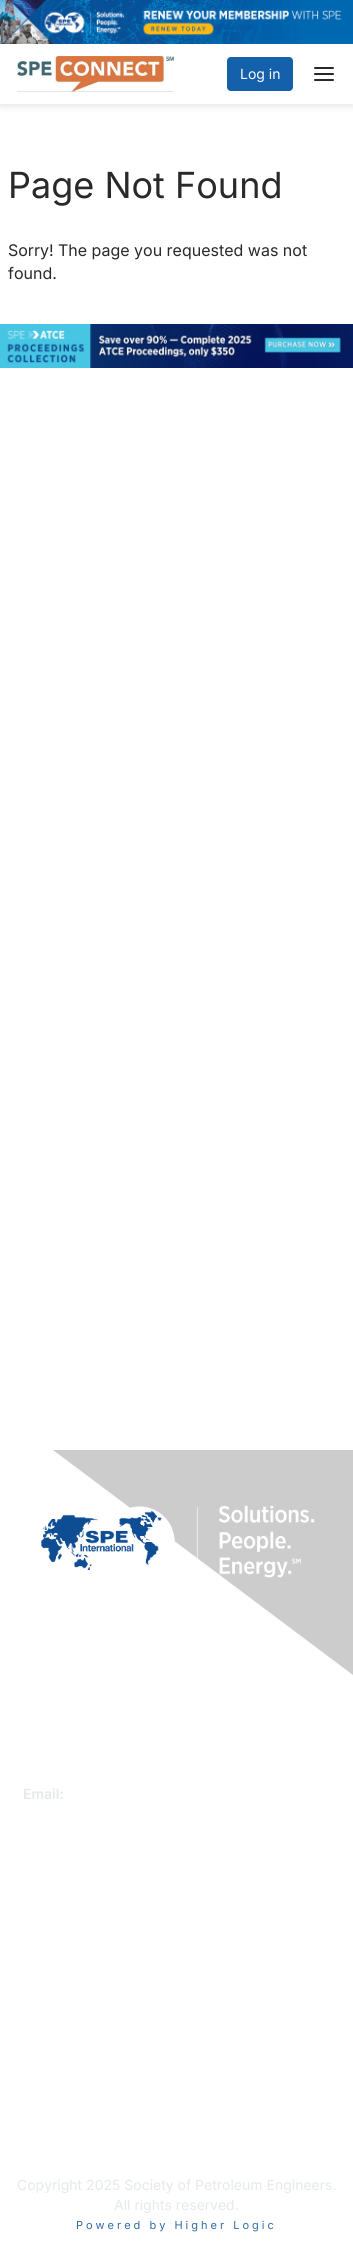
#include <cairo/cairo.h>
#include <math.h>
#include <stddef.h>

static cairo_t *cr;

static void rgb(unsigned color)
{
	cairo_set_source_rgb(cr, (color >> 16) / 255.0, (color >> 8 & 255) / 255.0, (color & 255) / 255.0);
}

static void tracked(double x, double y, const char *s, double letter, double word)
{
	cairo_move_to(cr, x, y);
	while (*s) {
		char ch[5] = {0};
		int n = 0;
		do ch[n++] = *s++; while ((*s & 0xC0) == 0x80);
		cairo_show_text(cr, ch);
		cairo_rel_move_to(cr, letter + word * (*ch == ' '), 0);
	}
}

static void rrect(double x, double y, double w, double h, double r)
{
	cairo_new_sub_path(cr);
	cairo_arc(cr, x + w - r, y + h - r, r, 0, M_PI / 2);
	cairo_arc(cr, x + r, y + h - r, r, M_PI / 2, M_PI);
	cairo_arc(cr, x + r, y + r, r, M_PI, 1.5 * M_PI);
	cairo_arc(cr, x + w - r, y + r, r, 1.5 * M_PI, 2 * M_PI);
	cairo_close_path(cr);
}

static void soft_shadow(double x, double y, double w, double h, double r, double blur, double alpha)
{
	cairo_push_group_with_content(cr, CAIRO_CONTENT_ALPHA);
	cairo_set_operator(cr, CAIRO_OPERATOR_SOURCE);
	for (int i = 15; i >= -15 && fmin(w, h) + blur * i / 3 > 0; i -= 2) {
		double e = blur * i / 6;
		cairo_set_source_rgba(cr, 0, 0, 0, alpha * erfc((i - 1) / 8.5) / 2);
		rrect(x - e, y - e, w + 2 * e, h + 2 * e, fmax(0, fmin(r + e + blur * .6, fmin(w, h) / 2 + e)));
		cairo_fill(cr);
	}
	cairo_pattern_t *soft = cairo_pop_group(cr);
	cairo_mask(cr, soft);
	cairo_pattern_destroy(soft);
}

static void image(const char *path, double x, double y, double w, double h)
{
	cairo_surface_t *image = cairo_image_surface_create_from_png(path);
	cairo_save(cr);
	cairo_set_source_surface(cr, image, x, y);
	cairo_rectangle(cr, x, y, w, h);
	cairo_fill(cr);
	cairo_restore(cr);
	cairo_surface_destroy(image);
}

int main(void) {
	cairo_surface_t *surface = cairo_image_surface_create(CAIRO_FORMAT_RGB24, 353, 2249);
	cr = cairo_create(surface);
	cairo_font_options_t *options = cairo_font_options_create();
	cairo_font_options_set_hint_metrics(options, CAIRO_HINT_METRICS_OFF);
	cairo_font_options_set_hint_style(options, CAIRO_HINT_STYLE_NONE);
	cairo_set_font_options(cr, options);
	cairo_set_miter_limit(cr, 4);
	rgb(0xffffff);
	cairo_paint(cr);
	image("img/1.png", 0, 0, 353, 44);
	cairo_save(cr);
	cairo_set_fill_rule(cr, CAIRO_FILL_RULE_EVEN_ODD);
	cairo_new_path(cr);
	cairo_move_to(cr, 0, 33);
	cairo_line_to(cr, 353, 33);
	cairo_line_to(cr, 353, 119);
	cairo_line_to(cr, 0, 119);
	cairo_close_path(cr);
	cairo_move_to(cr, 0, 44);
	cairo_line_to(cr, 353, 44);
	cairo_line_to(cr, 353, 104);
	cairo_line_to(cr, 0, 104);
	cairo_close_path(cr);
	cairo_clip(cr);
	rgb(0x838791);
	soft_shadow(0, 46, 353, 60, 0, 4, 0.24);
	cairo_restore(cr);
	image("img/2.png", 17, 56, 157, 36);
	rgb(0x1460aa);
	rrect(227.5, 57.5, 65, 33, 3.5);
	cairo_fill_preserve(cr);
	cairo_set_line_width(cr, 1);
	cairo_stroke(cr);
	rgb(0x292929);
	rrect(314, 67, 20, 2, 1);
	cairo_fill(cr);
	rrect(314, 73, 20, 2, 1);
	cairo_fill(cr);
	rrect(314, 79, 20, 2, 1);
	cairo_fill(cr);
	image("img/3.png", 0, 324, 353, 44);
	rgb(0xcccccc);
	cairo_new_path(cr);
	cairo_move_to(cr, 353, 1450);
	cairo_line_to(cr, 353, 1675);
	cairo_line_to(cr, 53, 1450);
	cairo_close_path(cr);
	cairo_fill(cr);
	image("img/4.png", 41, 1505, 274, 73);
	cairo_select_font_face(cr, "Inter", CAIRO_FONT_SLANT_NORMAL, CAIRO_FONT_WEIGHT_NORMAL);
	cairo_set_font_size(cr, 14);
	rgb(0xffffff);
	cairo_move_to(cr, 240, 79);
	cairo_show_text(cr, "Log in");
	cairo_set_font_size(cr, 36);
	rgb(0x292929);
	cairo_move_to(cr, 8, 198);
	cairo_show_text(cr, "Page Not Found");
	cairo_set_font_size(cr, 16);
	cairo_move_to(cr, 8, 256);
	cairo_show_text(cr, "Sorry! The page you requested was not");
	cairo_move_to(cr, 8, 279);
	cairo_show_text(cr, "found.");
	cairo_select_font_face(cr, "Inter SemiBold", CAIRO_FONT_SLANT_NORMAL, CAIRO_FONT_WEIGHT_NORMAL);
	cairo_set_font_size(cr, 14);
	rgb(0xe5e9eb);
	cairo_move_to(cr, 23, 1799);
	cairo_show_text(cr, "Email:");
	cairo_select_font_face(cr, "Inter", CAIRO_FONT_SLANT_NORMAL, CAIRO_FONT_WEIGHT_NORMAL);
	cairo_move_to(cr, 17, 2190);
	cairo_show_text(cr, "Copyright 2025 Society of Petroleum Engineers.");
	cairo_move_to(cr, 114, 2210);
	cairo_show_text(cr, "All rights reserved.");
	cairo_set_font_size(cr, 11);
	rgb(0x2e6da4);
	tracked(76, 2229, "Powered by Higher Logic", 3, 0);
	cairo_surface_write_to_png(surface, "page.png");
	cairo_font_options_destroy(options);
	cairo_destroy(cr);
	cairo_surface_destroy(surface);
	return 0;
}
